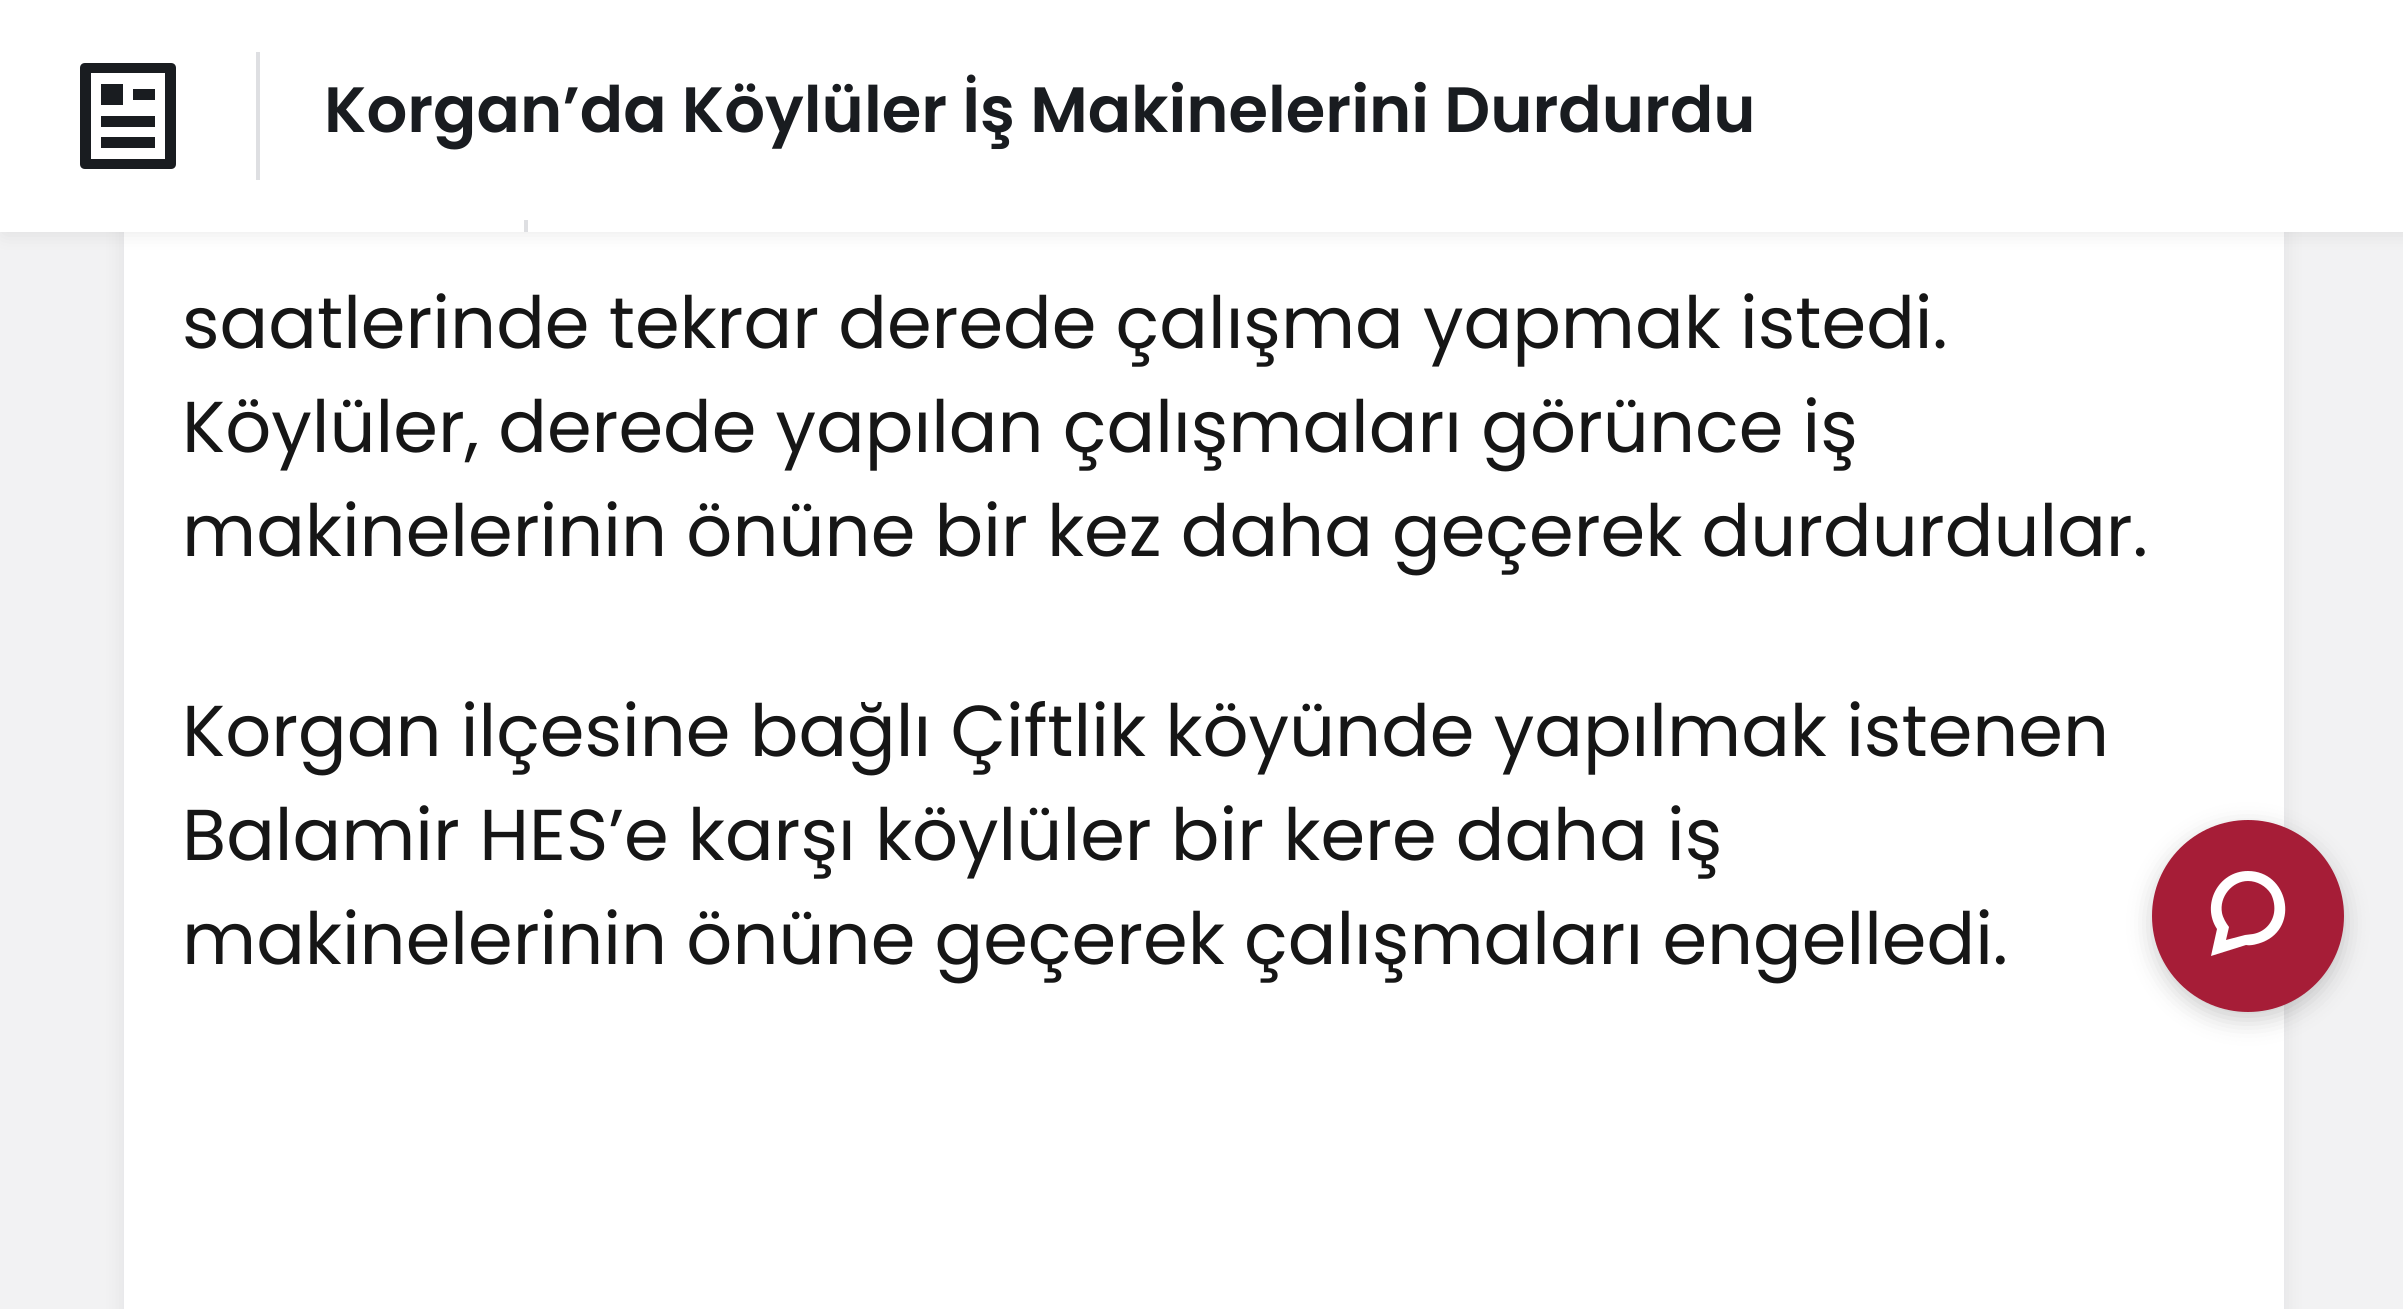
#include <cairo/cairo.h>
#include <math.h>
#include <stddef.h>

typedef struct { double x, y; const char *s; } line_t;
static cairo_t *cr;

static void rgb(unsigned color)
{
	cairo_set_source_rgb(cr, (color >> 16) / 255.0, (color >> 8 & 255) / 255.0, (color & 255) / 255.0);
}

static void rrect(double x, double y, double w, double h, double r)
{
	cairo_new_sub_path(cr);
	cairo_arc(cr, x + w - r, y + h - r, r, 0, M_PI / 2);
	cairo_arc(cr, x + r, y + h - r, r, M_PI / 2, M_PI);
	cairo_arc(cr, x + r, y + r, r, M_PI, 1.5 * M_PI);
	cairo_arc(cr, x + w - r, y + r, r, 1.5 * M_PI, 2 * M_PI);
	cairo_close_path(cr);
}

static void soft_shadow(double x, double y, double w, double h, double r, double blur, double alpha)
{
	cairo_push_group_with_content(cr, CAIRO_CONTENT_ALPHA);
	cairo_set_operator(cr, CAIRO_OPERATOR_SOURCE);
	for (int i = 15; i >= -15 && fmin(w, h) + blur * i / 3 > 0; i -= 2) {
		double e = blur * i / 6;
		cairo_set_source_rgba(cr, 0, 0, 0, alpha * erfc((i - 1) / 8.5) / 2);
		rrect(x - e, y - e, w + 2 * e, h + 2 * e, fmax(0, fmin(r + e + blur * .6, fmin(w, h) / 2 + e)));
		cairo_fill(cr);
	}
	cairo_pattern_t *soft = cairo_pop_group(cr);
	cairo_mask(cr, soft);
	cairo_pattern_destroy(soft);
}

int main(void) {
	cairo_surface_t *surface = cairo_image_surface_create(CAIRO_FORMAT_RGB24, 2403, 1309);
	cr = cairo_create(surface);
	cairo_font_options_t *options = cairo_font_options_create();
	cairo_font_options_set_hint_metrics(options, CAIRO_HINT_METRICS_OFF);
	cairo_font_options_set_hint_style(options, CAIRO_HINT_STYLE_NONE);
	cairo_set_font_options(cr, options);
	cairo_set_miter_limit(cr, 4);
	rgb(0xf2f2f3);
	cairo_paint(cr);
	rgb(0x32353d);
	soft_shadow(124, -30, 2160, 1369, 0, 10, 0.1);
	rgb(0xffffff);
	cairo_rectangle(cr, 124, 232, 2160, 1077);
	cairo_fill(cr);
	rgb(0x000000);
	soft_shadow(4, 0, 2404, 232, 0, 10, 0.1);
	rgb(0xffffff);
	cairo_rectangle(cr, 0, 0, 2403, 232);
	cairo_fill(cr);
	rgb(0x191c20);
	cairo_new_path(cr);
	cairo_move_to(cr, 171, 169);
	cairo_line_to(cr, 85, 169);
	cairo_curve_to(cr, 82, 169, 80, 167, 80, 164);
	cairo_line_to(cr, 80, 68);
	cairo_curve_to(cr, 80, 65, 82, 63, 85, 63);
	cairo_line_to(cr, 171, 63);
	cairo_curve_to(cr, 174, 63, 176, 65, 176, 68);
	cairo_line_to(cr, 176, 164);
	cairo_curve_to(cr, 176, 167, 174, 169, 171, 169);
	cairo_close_path(cr);
	cairo_move_to(cr, 165, 159);
	cairo_line_to(cr, 165, 73);
	cairo_line_to(cr, 91, 73);
	cairo_line_to(cr, 91, 159);
	cairo_close_path(cr);
	cairo_move_to(cr, 101, 84);
	cairo_line_to(cr, 123, 84);
	cairo_line_to(cr, 123, 105);
	cairo_line_to(cr, 101, 105);
	cairo_close_path(cr);
	cairo_move_to(cr, 101, 116);
	cairo_line_to(cr, 155, 116);
	cairo_line_to(cr, 155, 127);
	cairo_line_to(cr, 101, 127);
	cairo_close_path(cr);
	cairo_move_to(cr, 101, 137);
	cairo_line_to(cr, 155, 137);
	cairo_line_to(cr, 155, 148);
	cairo_line_to(cr, 101, 148);
	cairo_close_path(cr);
	cairo_move_to(cr, 133, 89);
	cairo_line_to(cr, 155, 89);
	cairo_line_to(cr, 155, 100);
	cairo_line_to(cr, 133, 100);
	cairo_close_path(cr);
	cairo_fill(cr);
	rgb(0xdedfe2);
	cairo_rectangle(cr, 256, 52, 4, 128);
	cairo_fill(cr);
	cairo_rectangle(cr, 524, 220, 4, 12);
	cairo_fill(cr);
	rgb(0x000000);
	soft_shadow(2152, 828, 192, 192, 96, 12, 0.2);
	rgb(0xa61d37);
	cairo_arc(cr, 2248, 916, 96, 0, 2 * M_PI);
	cairo_fill(cr);
	rgb(0xffffff);
	cairo_new_path(cr);
	cairo_move_to(cr, 2248, 881);
	cairo_curve_to(cr, 2257, 881, 2266, 886, 2271, 894);
	cairo_curve_to(cr, 2274, 900, 2275, 907, 2274, 913);
	cairo_curve_to(cr, 2272, 924, 2264, 932, 2253, 934);
	cairo_line_to(cr, 2245, 935);
	cairo_line_to(cr, 2226, 940);
	cairo_line_to(cr, 2229, 927);
	cairo_curve_to(cr, 2226, 923, 2223, 918, 2222, 913);
	cairo_curve_to(cr, 2219, 897, 2232, 881, 2248, 881);
	cairo_close_path(cr);
	cairo_move_to(cr, 2248, 871);
	cairo_curve_to(cr, 2218, 871, 2201, 905, 2217, 929);
	cairo_line_to(cr, 2211, 956);
	cairo_line_to(cr, 2246, 945);
	cairo_curve_to(cr, 2251, 946, 2258, 944, 2263, 942);
	cairo_curve_to(cr, 2300, 927, 2288, 871, 2248, 871);
	cairo_close_path(cr);
	cairo_fill(cr);
	cairo_select_font_face(cr, "Poppins SemiBold", CAIRO_FONT_SLANT_NORMAL, CAIRO_FONT_WEIGHT_NORMAL);
	cairo_set_font_size(cr, 64);
	rgb(0x191c20);
	cairo_move_to(cr, 324, 132);
	cairo_show_text(cr, "Korgan’da Köylüler İş Makinelerini Durdurdu");
	cairo_select_font_face(cr, "Poppins", CAIRO_FONT_SLANT_NORMAL, CAIRO_FONT_WEIGHT_NORMAL);
	cairo_set_font_size(cr, 72);
	rgb(0x161616);
	{
		static const line_t items[] = {
			{182, 348, "saatlerinde tekrar derede çalışma yapmak istedi."},
			{182, 452, "Köylüler, derede yapılan çalışmaları görünce iş"},
			{182, 556, "makinelerinin önüne bir kez daha geçerek durdurdular."},
			{182, 756, "Korgan ilçesine bağlı Çiftlik köyünde yapılmak istenen"},
			{182, 860, "Balamir HES’e karşı köylüler bir kere daha iş"},
			{182, 964, "makinelerinin önüne geçerek çalışmaları engelledi."},
		};
		for (size_t i = 0; i < sizeof items / sizeof *items; i++) {
			cairo_move_to(cr, items[i].x, items[i].y);
			cairo_show_text(cr, items[i].s);
		}
	}
	cairo_surface_write_to_png(surface, "page.png");
	cairo_font_options_destroy(options);
	cairo_destroy(cr);
	cairo_surface_destroy(surface);
	return 0;
}
